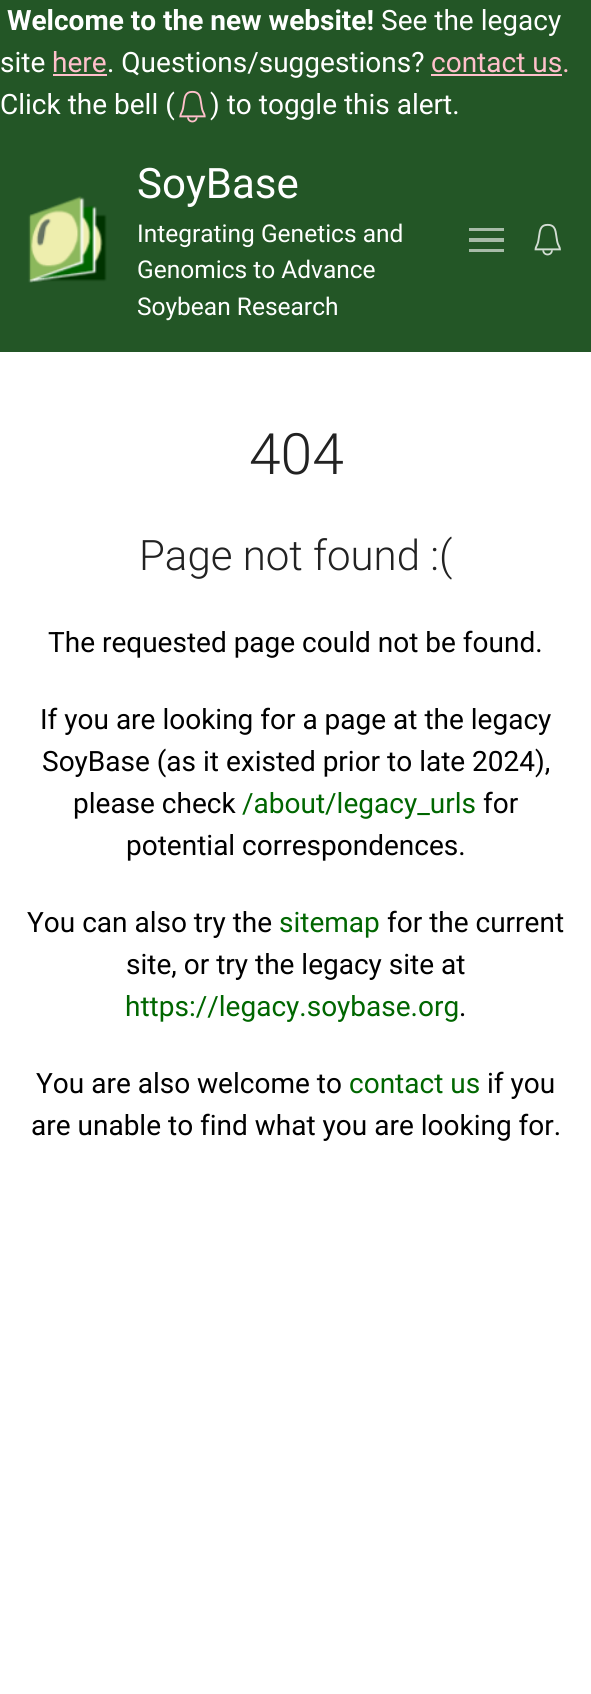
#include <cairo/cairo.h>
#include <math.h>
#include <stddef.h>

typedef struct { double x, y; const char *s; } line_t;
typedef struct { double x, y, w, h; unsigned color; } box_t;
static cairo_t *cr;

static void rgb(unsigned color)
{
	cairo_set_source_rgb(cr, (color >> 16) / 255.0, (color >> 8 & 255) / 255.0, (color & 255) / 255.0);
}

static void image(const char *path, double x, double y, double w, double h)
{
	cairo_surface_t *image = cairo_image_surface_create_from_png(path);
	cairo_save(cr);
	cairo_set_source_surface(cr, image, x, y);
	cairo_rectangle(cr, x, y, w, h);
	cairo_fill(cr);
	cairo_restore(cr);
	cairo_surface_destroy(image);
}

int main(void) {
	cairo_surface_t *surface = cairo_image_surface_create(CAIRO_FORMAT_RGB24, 591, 1694);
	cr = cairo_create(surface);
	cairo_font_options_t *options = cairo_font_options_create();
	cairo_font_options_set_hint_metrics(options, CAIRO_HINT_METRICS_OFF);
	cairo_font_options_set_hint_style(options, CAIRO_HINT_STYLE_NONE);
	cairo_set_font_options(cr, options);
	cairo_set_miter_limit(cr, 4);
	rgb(0xffffff);
	cairo_paint(cr);
	{
		static const box_t items[] = {
			{0, 0, 591, 352, 0x235626},
			{53, 74, 54, 2, 0xffc0cb},
			{431, 74, 131, 2, 0xffc0cb},
		};
		for (size_t i = 0; i < sizeof items / sizeof *items; i++) {
			rgb(items[i].color);
			cairo_rectangle(cr, items[i].x, items[i].y, items[i].w, items[i].h);
			cairo_fill(cr);
		}
	}
	image("img/1.png", 179, 90, 27, 33);
	image("img/2.png", 28, 196, 79, 87);
	{
		static const box_t items[] = {
			{469, 228, 35, 3, 0xa7bba8},
			{469, 238, 35, 4, 0xa7bba8},
			{469, 249, 35, 3, 0xa7bba8},
		};
		for (size_t i = 0; i < sizeof items / sizeof *items; i++) {
			rgb(items[i].color);
			cairo_rectangle(cr, items[i].x, items[i].y, items[i].w, items[i].h);
			cairo_fill(cr);
		}
	}
	image("img/3.png", 534, 223, 27, 33);
	cairo_select_font_face(cr, "Roboto", CAIRO_FONT_SLANT_NORMAL, CAIRO_FONT_WEIGHT_BOLD);
	cairo_set_font_size(cr, 28);
	rgb(0xffffff);
	cairo_move_to(cr, 7, 30);
	cairo_show_text(cr, "Welcome to the new website!");
	cairo_select_font_face(cr, "Roboto", CAIRO_FONT_SLANT_NORMAL, CAIRO_FONT_WEIGHT_NORMAL);
	cairo_move_to(cr, 381, 30);
	cairo_show_text(cr, "See the legacy");
	cairo_move_to(cr, 0, 72);
	cairo_show_text(cr, "site");
	rgb(0xffc0cb);
	cairo_move_to(cr, 52, 72);
	cairo_show_text(cr, "here");
	rgb(0xffffff);
	cairo_move_to(cr, 107, 72);
	cairo_show_text(cr, ". Questions/suggestions?");
	rgb(0xffc0cb);
	cairo_move_to(cr, 431, 72);
	cairo_show_text(cr, "contact us.");
	rgb(0xffffff);
	cairo_move_to(cr, 0, 114);
	cairo_show_text(cr, "Click the bell (");
	cairo_move_to(cr, 210, 114);
	cairo_show_text(cr, ") to toggle this alert.");
	cairo_set_font_size(cr, 42);
	cairo_move_to(cr, 137, 198);
	cairo_show_text(cr, "SoyBase");
	cairo_set_font_size(cr, 24.5);
	{
		static const line_t items[] = {
			{137, 242, "Integrating Genetics and"},
			{137, 278, "Genomics to Advance"},
			{137, 315, "Soybean Research"},
		};
		for (size_t i = 0; i < sizeof items / sizeof *items; i++) {
			cairo_move_to(cr, items[i].x, items[i].y);
			cairo_show_text(cr, items[i].s);
		}
	}
	cairo_select_font_face(cr, "Roboto Light", CAIRO_FONT_SLANT_NORMAL, CAIRO_FONT_WEIGHT_NORMAL);
	cairo_set_font_size(cr, 57);
	rgb(0x222222);
	cairo_move_to(cr, 249, 474);
	cairo_show_text(cr, "404");
	cairo_set_font_size(cr, 42);
	cairo_move_to(cr, 139, 570);
	cairo_show_text(cr, "Page not found :(");
	cairo_select_font_face(cr, "Roboto", CAIRO_FONT_SLANT_NORMAL, CAIRO_FONT_WEIGHT_NORMAL);
	cairo_set_font_size(cr, 28);
	rgb(0x000000);
	{
		static const line_t items[] = {
			{48, 652, "The requested page could not be found."},
			{40, 729, "If you are looking for a page at the legacy"},
			{42, 771, "SoyBase (as it existed prior to late 2024),"},
			{73, 813, "please check"},
		};
		for (size_t i = 0; i < sizeof items / sizeof *items; i++) {
			cairo_move_to(cr, items[i].x, items[i].y);
			cairo_show_text(cr, items[i].s);
		}
	}
	rgb(0x006600);
	cairo_move_to(cr, 242, 813);
	cairo_show_text(cr, "/about/legacy_urls");
	rgb(0x000000);
	{
		static const line_t items[] = {
			{483, 813, "for"},
			{126, 855, "potential correspondences."},
			{27, 932, "You can also try the"},
		};
		for (size_t i = 0; i < sizeof items / sizeof *items; i++) {
			cairo_move_to(cr, items[i].x, items[i].y);
			cairo_show_text(cr, items[i].s);
		}
	}
	rgb(0x006600);
	cairo_move_to(cr, 279, 932);
	cairo_show_text(cr, "sitemap");
	rgb(0x000000);
	cairo_move_to(cr, 387, 932);
	cairo_show_text(cr, "for the current");
	cairo_move_to(cr, 126, 974);
	cairo_show_text(cr, "site, or try the legacy site at");
	rgb(0x006600);
	cairo_move_to(cr, 125, 1016);
	cairo_show_text(cr, "https://legacy.soybase.org");
	rgb(0x000000);
	cairo_move_to(cr, 459, 1016);
	cairo_show_text(cr, ".");
	cairo_move_to(cr, 36, 1093);
	cairo_show_text(cr, "You are also welcome to");
	rgb(0x006600);
	cairo_move_to(cr, 349, 1093);
	cairo_show_text(cr, "contact us");
	rgb(0x000000);
	cairo_move_to(cr, 487, 1093);
	cairo_show_text(cr, "if you");
	cairo_move_to(cr, 31, 1135);
	cairo_show_text(cr, "are unable to find what you are looking for.");
	cairo_surface_write_to_png(surface, "page.png");
	cairo_font_options_destroy(options);
	cairo_destroy(cr);
	cairo_surface_destroy(surface);
	return 0;
}
